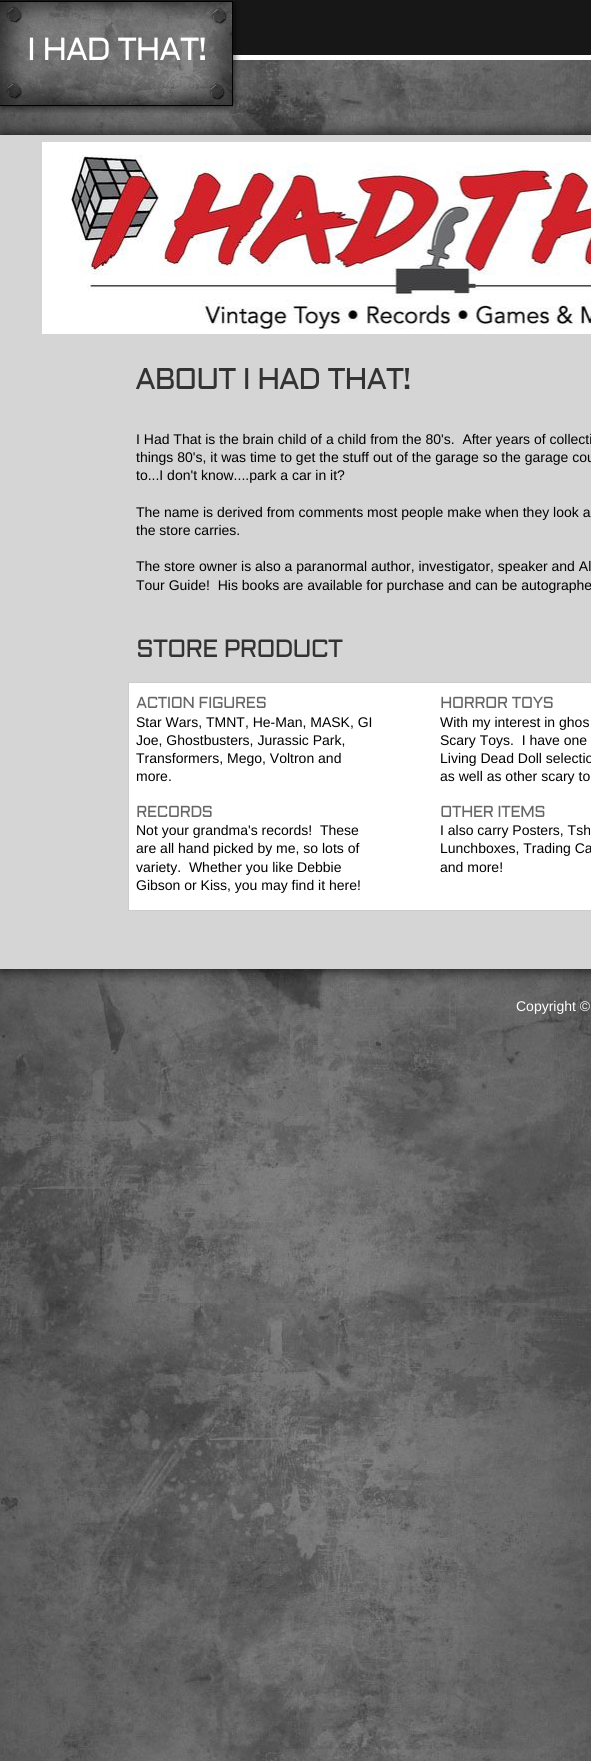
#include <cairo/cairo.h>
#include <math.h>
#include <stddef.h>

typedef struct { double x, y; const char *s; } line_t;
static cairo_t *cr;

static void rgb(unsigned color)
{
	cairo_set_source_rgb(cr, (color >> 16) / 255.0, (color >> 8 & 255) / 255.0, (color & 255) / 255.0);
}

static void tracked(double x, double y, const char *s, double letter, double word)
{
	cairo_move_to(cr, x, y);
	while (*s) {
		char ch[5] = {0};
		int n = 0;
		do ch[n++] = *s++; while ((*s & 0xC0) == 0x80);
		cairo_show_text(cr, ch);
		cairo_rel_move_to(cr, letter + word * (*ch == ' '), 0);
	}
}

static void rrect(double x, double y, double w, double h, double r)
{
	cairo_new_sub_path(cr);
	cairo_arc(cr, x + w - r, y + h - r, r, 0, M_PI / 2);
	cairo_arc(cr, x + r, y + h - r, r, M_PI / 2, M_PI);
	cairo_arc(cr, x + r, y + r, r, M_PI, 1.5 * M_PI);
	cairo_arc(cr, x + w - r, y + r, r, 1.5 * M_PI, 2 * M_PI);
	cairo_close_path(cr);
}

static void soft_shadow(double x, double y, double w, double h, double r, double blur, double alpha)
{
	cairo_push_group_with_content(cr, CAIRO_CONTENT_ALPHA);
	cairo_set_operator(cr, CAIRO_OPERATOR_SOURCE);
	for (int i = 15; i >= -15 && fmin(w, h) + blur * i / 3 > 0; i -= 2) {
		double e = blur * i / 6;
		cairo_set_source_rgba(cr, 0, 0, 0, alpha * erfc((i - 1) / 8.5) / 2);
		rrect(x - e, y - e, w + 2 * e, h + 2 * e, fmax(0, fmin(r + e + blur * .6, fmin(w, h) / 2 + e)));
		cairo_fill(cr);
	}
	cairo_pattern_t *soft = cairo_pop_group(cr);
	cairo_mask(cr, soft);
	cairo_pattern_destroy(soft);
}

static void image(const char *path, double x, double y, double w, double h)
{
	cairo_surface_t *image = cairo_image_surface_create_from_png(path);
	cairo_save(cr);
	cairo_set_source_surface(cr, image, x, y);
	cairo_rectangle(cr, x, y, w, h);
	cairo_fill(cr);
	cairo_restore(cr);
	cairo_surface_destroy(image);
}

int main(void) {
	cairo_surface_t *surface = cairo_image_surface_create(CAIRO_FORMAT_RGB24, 591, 1761);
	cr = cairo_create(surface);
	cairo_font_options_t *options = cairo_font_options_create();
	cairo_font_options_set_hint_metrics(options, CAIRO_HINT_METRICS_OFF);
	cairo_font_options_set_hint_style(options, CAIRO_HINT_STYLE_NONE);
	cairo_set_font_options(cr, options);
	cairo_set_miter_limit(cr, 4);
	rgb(0xffffff);
	cairo_paint(cr);
	image("img/1.png", 0, 60, 591, 1701);
	rgb(0x171717);
	cairo_rectangle(cr, 0, 0, 591, 55);
	cairo_fill(cr);
	rgb(0x000000);
	soft_shadow(0, 135, 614, 834, 0, 7.5, 0.9);
	rgb(0xd5d5d5);
	cairo_rectangle(cr, 0, 135, 591, 834);
	cairo_fill(cr);
	image("img/2.png", 0, 1, 241, 112);
	cairo_rectangle(cr, 44.5, 144.5, 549, 187);
	rgb(0xffffff);
	cairo_set_line_width(cr, 5);
	cairo_stroke(cr);
	image("img/3.png", 47, 147, 544, 182);
	cairo_rectangle(cr, 128.5, 682.5, 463, 228);
	cairo_fill_preserve(cr);
	rgb(0xcccccc);
	cairo_set_line_width(cr, 1);
	cairo_stroke(cr);
	cairo_select_font_face(cr, "Aldrich", CAIRO_FONT_SLANT_NORMAL, CAIRO_FONT_WEIGHT_NORMAL);
	cairo_set_font_size(cr, 32);
	rgb(0xffffff);
	tracked(27, 60, "I HAD THAT!", -1.6, 0);
	cairo_set_font_size(cr, 30);
	rgb(0x333333);
	tracked(135, 389, "ABOUT I HAD THAT!", -1.5, 0);
	cairo_select_font_face(cr, "Liberation Sans", CAIRO_FONT_SLANT_NORMAL, CAIRO_FONT_WEIGHT_NORMAL);
	cairo_set_font_size(cr, 14);
	rgb(0x000000);
	{
		static const line_t items[] = {
			{136, 444, "I Had That is the brain child of a child from the 80's.  After years of collecti"},
			{136, 462, "things 80's, it was time to get the stuff out of the garage so the garage cou"},
			{136, 480, "to...I don't know....park a car in it?"},
			{136, 517, "The name is derived from comments most people make when they look a"},
			{136, 535, "the store carries."},
			{136, 571, "The store owner is also a paranormal author, investigator, speaker and Al"},
			{136, 590, "Tour Guide!  His books are available for purchase and can be autographe"},
		};
		for (size_t i = 0; i < sizeof items / sizeof *items; i++) {
			cairo_move_to(cr, items[i].x, items[i].y);
			cairo_show_text(cr, items[i].s);
		}
	}
	cairo_select_font_face(cr, "Aldrich", CAIRO_FONT_SLANT_NORMAL, CAIRO_FONT_WEIGHT_NORMAL);
	cairo_set_font_size(cr, 25);
	rgb(0x333333);
	tracked(136, 657, "STORE PRODUCT", -1.25, 0);
	cairo_set_font_size(cr, 16);
	rgb(0x666666);
	tracked(136, 708, "ACTION FIGURES", -0.75, 0);
	cairo_select_font_face(cr, "Liberation Sans", CAIRO_FONT_SLANT_NORMAL, CAIRO_FONT_WEIGHT_NORMAL);
	cairo_set_font_size(cr, 14);
	rgb(0x000000);
	{
		static const line_t items[] = {
			{136, 727, "Star Wars, TMNT, He-Man, MASK, GI"},
			{136, 745, "Joe, Ghostbusters, Jurassic Park,"},
			{136, 763, "Transformers, Mego, Voltron and"},
			{136, 781, "more."},
		};
		for (size_t i = 0; i < sizeof items / sizeof *items; i++) {
			cairo_move_to(cr, items[i].x, items[i].y);
			cairo_show_text(cr, items[i].s);
		}
	}
	cairo_select_font_face(cr, "Aldrich", CAIRO_FONT_SLANT_NORMAL, CAIRO_FONT_WEIGHT_NORMAL);
	cairo_set_font_size(cr, 16);
	rgb(0x666666);
	tracked(136, 817, "RECORDS", -0.75, 0);
	cairo_select_font_face(cr, "Liberation Sans", CAIRO_FONT_SLANT_NORMAL, CAIRO_FONT_WEIGHT_NORMAL);
	cairo_set_font_size(cr, 14);
	rgb(0x000000);
	{
		static const line_t items[] = {
			{136, 835, "Not your grandma's records!  These"},
			{136, 853, "are all hand picked by me, so lots of"},
			{136, 872, "variety.  Whether you like Debbie"},
			{136, 890, "Gibson or Kiss, you may find it here!"},
		};
		for (size_t i = 0; i < sizeof items / sizeof *items; i++) {
			cairo_move_to(cr, items[i].x, items[i].y);
			cairo_show_text(cr, items[i].s);
		}
	}
	cairo_select_font_face(cr, "Aldrich", CAIRO_FONT_SLANT_NORMAL, CAIRO_FONT_WEIGHT_NORMAL);
	cairo_set_font_size(cr, 16);
	rgb(0x666666);
	tracked(440, 708, "HORROR TOYS", -0.75, 0);
	cairo_select_font_face(cr, "Liberation Sans", CAIRO_FONT_SLANT_NORMAL, CAIRO_FONT_WEIGHT_NORMAL);
	cairo_set_font_size(cr, 14);
	rgb(0x000000);
	{
		static const line_t items[] = {
			{440, 727, "With my interest in ghos"},
			{440, 745, "Scary Toys.  I have one"},
			{440, 763, "Living Dead Doll selectio"},
			{440, 781, "as well as other scary to"},
		};
		for (size_t i = 0; i < sizeof items / sizeof *items; i++) {
			cairo_move_to(cr, items[i].x, items[i].y);
			cairo_show_text(cr, items[i].s);
		}
	}
	cairo_select_font_face(cr, "Aldrich", CAIRO_FONT_SLANT_NORMAL, CAIRO_FONT_WEIGHT_NORMAL);
	cairo_set_font_size(cr, 16);
	rgb(0x666666);
	tracked(440, 817, "OTHER ITEMS", -0.75, 0);
	cairo_select_font_face(cr, "Liberation Sans", CAIRO_FONT_SLANT_NORMAL, CAIRO_FONT_WEIGHT_NORMAL);
	cairo_set_font_size(cr, 14);
	rgb(0x000000);
	{
		static const line_t items[] = {
			{440, 835, "I also carry Posters, Tsh"},
			{440, 853, "Lunchboxes, Trading Ca"},
			{440, 872, "and more!"},
		};
		for (size_t i = 0; i < sizeof items / sizeof *items; i++) {
			cairo_move_to(cr, items[i].x, items[i].y);
			cairo_show_text(cr, items[i].s);
		}
	}
	rgb(0xffffff);
	cairo_move_to(cr, 516, 1011);
	cairo_show_text(cr, "Copyright ©");
	cairo_surface_write_to_png(surface, "page.png");
	cairo_font_options_destroy(options);
	cairo_destroy(cr);
	cairo_surface_destroy(surface);
	return 0;
}
